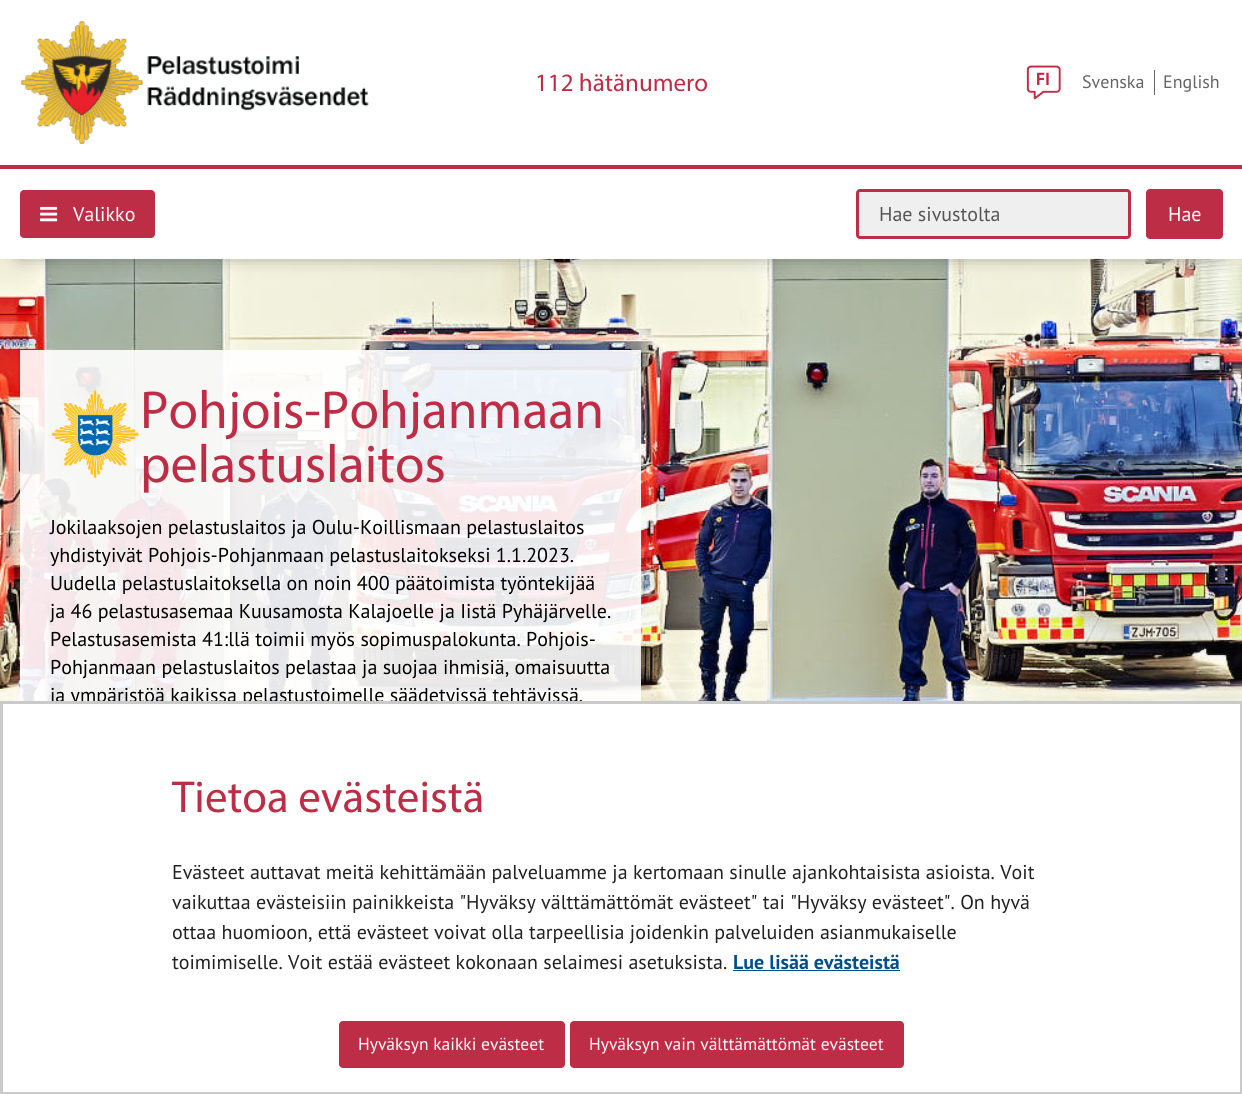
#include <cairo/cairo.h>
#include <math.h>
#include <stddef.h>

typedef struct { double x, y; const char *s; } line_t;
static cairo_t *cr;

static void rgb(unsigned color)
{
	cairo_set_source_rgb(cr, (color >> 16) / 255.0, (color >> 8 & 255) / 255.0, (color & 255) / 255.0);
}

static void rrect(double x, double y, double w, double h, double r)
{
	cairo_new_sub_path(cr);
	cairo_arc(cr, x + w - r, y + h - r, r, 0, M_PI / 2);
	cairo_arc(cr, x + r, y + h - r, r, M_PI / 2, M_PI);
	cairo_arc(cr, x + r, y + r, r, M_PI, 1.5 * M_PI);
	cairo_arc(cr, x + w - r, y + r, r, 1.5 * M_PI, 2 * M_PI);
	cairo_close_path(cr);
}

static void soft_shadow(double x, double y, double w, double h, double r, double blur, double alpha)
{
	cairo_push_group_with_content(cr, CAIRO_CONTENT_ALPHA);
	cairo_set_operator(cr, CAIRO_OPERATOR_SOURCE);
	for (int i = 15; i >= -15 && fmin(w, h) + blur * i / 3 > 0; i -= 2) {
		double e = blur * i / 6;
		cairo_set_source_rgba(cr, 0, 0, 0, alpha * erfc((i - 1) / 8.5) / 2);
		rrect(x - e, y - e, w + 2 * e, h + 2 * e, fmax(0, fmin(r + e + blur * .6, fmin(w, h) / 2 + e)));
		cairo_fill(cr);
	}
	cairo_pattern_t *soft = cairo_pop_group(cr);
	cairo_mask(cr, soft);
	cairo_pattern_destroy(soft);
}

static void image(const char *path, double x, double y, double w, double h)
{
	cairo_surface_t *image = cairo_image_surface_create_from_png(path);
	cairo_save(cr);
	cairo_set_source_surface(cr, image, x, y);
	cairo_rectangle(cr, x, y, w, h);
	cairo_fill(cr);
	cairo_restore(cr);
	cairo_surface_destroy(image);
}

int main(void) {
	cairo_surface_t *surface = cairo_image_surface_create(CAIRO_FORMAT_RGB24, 1242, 1094);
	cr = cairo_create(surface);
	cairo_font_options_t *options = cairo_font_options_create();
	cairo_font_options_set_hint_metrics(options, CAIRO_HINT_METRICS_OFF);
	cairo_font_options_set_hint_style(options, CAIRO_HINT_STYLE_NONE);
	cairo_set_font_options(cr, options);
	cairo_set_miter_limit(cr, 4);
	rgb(0xffffff);
	cairo_paint(cr);
	image("img/4.png", 0, 258, 1242, 443);
	cairo_save(cr);
	cairo_set_fill_rule(cr, CAIRO_FILL_RULE_EVEN_ODD);
	cairo_new_path(cr);
	cairo_move_to(cr, 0, 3);
	cairo_line_to(cr, 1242, 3);
	cairo_line_to(cr, 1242, 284);
	cairo_line_to(cr, 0, 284);
	cairo_close_path(cr);
	cairo_move_to(cr, 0, 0);
	cairo_line_to(cr, 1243, 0);
	cairo_line_to(cr, 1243, 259);
	cairo_line_to(cr, 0, 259);
	cairo_close_path(cr);
	cairo_clip(cr);
	rgb(0x000000);
	soft_shadow(19, 33, 1205, 221, 0, 9.5, 0.5);
	cairo_restore(cr);
	rgb(0xbe2d46);
	cairo_rectangle(cr, 0, 165, 1242, 4);
	cairo_fill(cr);
	image("img/1.png", 21, 21, 348, 123);
	image("img/2.png", 1026, 65, 35, 35);
	rgb(0x646464);
	cairo_rectangle(cr, 1154, 70, 1, 25);
	cairo_fill(cr);
	rgb(0xbe2d46);
	rrect(20, 190, 135, 48, 4);
	cairo_fill(cr);
	image("img/3.png", 40, 206, 18, 16);
	rgb(0xefefef);
	rrect(857.5, 190.5, 272, 47, 2.5);
	cairo_fill_preserve(cr);
	rgb(0xbe2d46);
	cairo_set_line_width(cr, 3);
	cairo_stroke(cr);
	rrect(1146.5, 189.5, 76, 49, 3.5);
	cairo_fill_preserve(cr);
	cairo_set_line_width(cr, 1);
	cairo_stroke(cr);
	cairo_set_source_rgba(cr, 1, 1, 1, 0.9);
	cairo_rectangle(cr, 20, 350, 621, 351);
	cairo_fill(cr);
	image("img/5.png", 51, 390, 89, 88);
	cairo_select_font_face(cr, "Myriad", CAIRO_FONT_SLANT_NORMAL, CAIRO_FONT_WEIGHT_NORMAL);
	cairo_set_font_size(cr, 25);
	rgb(0xbe2d46);
	cairo_move_to(cr, 535, 91);
	cairo_show_text(cr, "112 hätänumero");
	cairo_select_font_face(cr, "PT Sans", CAIRO_FONT_SLANT_NORMAL, CAIRO_FONT_WEIGHT_BOLD);
	cairo_set_font_size(cr, 17.5);
	cairo_move_to(cr, 1036, 85);
	cairo_show_text(cr, "FI");
	cairo_select_font_face(cr, "PT Sans", CAIRO_FONT_SLANT_NORMAL, CAIRO_FONT_WEIGHT_NORMAL);
	cairo_set_font_size(cr, 18);
	rgb(0x646464);
	cairo_move_to(cr, 1082, 88);
	cairo_show_text(cr, "Svenska");
	cairo_move_to(cr, 1163, 88);
	cairo_show_text(cr, "English");
	cairo_set_font_size(cr, 20);
	rgb(0xffffff);
	cairo_move_to(cr, 73, 221);
	cairo_show_text(cr, "Valikko");
	rgb(0x555555);
	cairo_move_to(cr, 879, 221);
	cairo_show_text(cr, "Hae sivustolta");
	rgb(0xffffff);
	cairo_move_to(cr, 1168, 221);
	cairo_show_text(cr, "Hae");
	cairo_select_font_face(cr, "Myriad", CAIRO_FONT_SLANT_NORMAL, CAIRO_FONT_WEIGHT_NORMAL);
	cairo_set_font_size(cr, 53.75);
	rgb(0xbe2d46);
	cairo_move_to(cr, 140, 428);
	cairo_show_text(cr, "Pohjois-Pohjanmaan");
	cairo_move_to(cr, 140, 482);
	cairo_show_text(cr, "pelastuslaitos");
	cairo_select_font_face(cr, "PT Sans", CAIRO_FONT_SLANT_NORMAL, CAIRO_FONT_WEIGHT_NORMAL);
	cairo_set_font_size(cr, 20);
	rgb(0x000000);
	{
		static const line_t items[] = {
			{50, 534, "Jokilaaksojen pelastuslaitos ja Oulu-Koillismaan pelastuslaitos"},
			{50, 562, "yhdistyivät Pohjois-Pohjanmaan pelastuslaitokseksi 1.1.2023."},
			{50, 590, "Uudella pelastuslaitoksella on noin 400 päätoimista työntekijää"},
			{50, 618, "ja 46 pelastusasemaa Kuusamosta Kalajoelle ja Iistä Pyhäjärvelle."},
			{50, 646, "Pelastusasemista 41:llä toimii myös sopimuspalokunta. Pohjois-"},
			{50, 674, "Pohjanmaan pelastuslaitos pelastaa ja suojaa ihmisiä, omaisuutta"},
			{50, 702, "ja ympäristöä kaikissa pelastustoimelle säädetyissä tehtävissä."},
		};
		for (size_t i = 0; i < sizeof items / sizeof *items; i++) {
			cairo_move_to(cr, items[i].x, items[i].y);
			cairo_show_text(cr, items[i].s);
		}
	}
	rgb(0xfefefe);
	cairo_rectangle(cr, 50, 704, 401, 3);
	cairo_fill(cr);
	cairo_rectangle(cr, 1.5, 702.5, 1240, 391);
	rgb(0xcacaca);
	cairo_set_line_width(cr, 3);
	cairo_stroke(cr);
	cairo_select_font_face(cr, "Myriad", CAIRO_FONT_SLANT_NORMAL, CAIRO_FONT_WEIGHT_NORMAL);
	cairo_set_font_size(cr, 45);
	rgb(0xbe2d46);
	cairo_move_to(cr, 172, 812);
	cairo_show_text(cr, "Tietoa evästeistä");
	cairo_select_font_face(cr, "PT Sans", CAIRO_FONT_SLANT_NORMAL, CAIRO_FONT_WEIGHT_NORMAL);
	cairo_set_font_size(cr, 20);
	rgb(0x212121);
	{
		static const line_t items[] = {
			{172, 879, "Evästeet auttavat meitä kehittämään palveluamme ja kertomaan sinulle ajankohtaisista asioista. Voit"},
			{172, 909, "vaikuttaa evästeisiin painikkeista \"Hyväksy välttämättömät evästeet\" tai \"Hyväksy evästeet\". On hyvä"},
			{172, 939, "ottaa huomioon, että evästeet voivat olla tarpeellisia joidenkin palveluiden asianmukaiselle"},
			{172, 969, "toimimiselle. Voit estää evästeet kokonaan selaimesi asetuksista."},
		};
		for (size_t i = 0; i < sizeof items / sizeof *items; i++) {
			cairo_move_to(cr, items[i].x, items[i].y);
			cairo_show_text(cr, items[i].s);
		}
	}
	cairo_select_font_face(cr, "PT Sans", CAIRO_FONT_SLANT_NORMAL, CAIRO_FONT_WEIGHT_BOLD);
	rgb(0x004f8c);
	cairo_move_to(cr, 733, 969);
	cairo_show_text(cr, "Lue lisää evästeistä");
	cairo_rectangle(cr, 733, 970, 167, 1);
	cairo_fill(cr);
	rgb(0xbe2d46);
	rrect(339, 1021, 226, 47, 4);
	cairo_fill(cr);
	cairo_select_font_face(cr, "PT Sans", CAIRO_FONT_SLANT_NORMAL, CAIRO_FONT_WEIGHT_NORMAL);
	cairo_set_font_size(cr, 17.5);
	rgb(0xffffff);
	cairo_move_to(cr, 358, 1050);
	cairo_show_text(cr, "Hyväksyn kaikki evästeet");
	rgb(0xbe2d46);
	rrect(570, 1021, 334, 47, 4);
	cairo_fill(cr);
	rgb(0xffffff);
	cairo_move_to(cr, 589, 1050);
	cairo_show_text(cr, "Hyväksyn vain välttämättömät evästeet");
	cairo_surface_write_to_png(surface, "page.png");
	cairo_font_options_destroy(options);
	cairo_destroy(cr);
	cairo_surface_destroy(surface);
	return 0;
}
